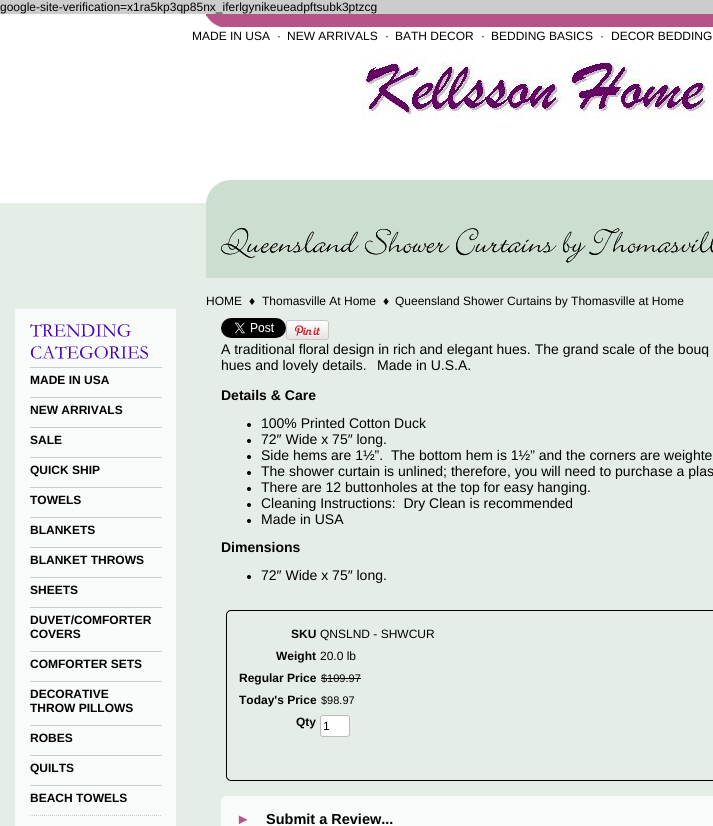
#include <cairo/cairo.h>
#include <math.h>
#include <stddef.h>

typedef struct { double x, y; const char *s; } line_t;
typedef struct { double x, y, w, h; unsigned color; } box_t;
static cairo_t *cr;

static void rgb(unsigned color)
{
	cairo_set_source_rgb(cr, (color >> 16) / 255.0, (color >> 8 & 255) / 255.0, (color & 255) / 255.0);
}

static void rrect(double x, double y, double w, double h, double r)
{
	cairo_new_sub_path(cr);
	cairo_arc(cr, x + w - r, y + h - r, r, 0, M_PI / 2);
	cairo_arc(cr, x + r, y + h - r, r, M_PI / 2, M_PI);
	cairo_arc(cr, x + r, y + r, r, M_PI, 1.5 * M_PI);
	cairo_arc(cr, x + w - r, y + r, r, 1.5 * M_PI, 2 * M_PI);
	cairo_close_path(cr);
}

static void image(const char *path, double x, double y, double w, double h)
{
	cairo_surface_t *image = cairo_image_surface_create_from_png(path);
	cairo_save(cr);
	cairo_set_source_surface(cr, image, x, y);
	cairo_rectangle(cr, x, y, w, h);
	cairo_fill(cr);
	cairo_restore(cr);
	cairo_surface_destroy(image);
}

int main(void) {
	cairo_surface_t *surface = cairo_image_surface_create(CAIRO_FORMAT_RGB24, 713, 826);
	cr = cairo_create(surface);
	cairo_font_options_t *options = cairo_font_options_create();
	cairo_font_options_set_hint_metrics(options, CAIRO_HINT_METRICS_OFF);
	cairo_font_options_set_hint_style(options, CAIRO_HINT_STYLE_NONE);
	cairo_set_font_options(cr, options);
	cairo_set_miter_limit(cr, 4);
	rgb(0xcccccc);
	cairo_paint(cr);
	rgb(0xffffff);
	cairo_rectangle(cr, 0, 14, 713, 189);
	cairo_fill(cr);
	rgb(0xb75487);
	cairo_rectangle(cr, 206, 14, 507, 13);
	cairo_fill(cr);
	image("img/1.png", 206, 16, 15, 11);
	image("img/2.png", 361, 54, 352, 64);
	rgb(0xccdecf);
	cairo_rectangle(cr, 206, 180, 507, 98);
	cairo_fill(cr);
	image("img/3.png", 206, 180, 23, 22);
	rgb(0xe5eee6);
	cairo_rectangle(cr, 0, 203, 206, 623);
	cairo_fill(cr);
	image("img/4.png", 221, 228, 492, 35);
	cairo_rectangle(cr, 206, 278, 507, 548);
	cairo_fill(cr);
	rgb(0xf8fbf9);
	cairo_rectangle(cr, 15, 309, 161, 517);
	cairo_fill(cr);
	image("img/5.png", 30, 324, 118, 35);
	cairo_new_path(cr);
	cairo_move_to(cr, 30, 815.5);
	cairo_line_to(cr, 161, 815.5);
	rgb(0xcccccc);
	cairo_set_line_width(cr, 1);
	cairo_set_dash(cr, (double[]){1, 1}, 2, 0);
	cairo_stroke(cr);
	{
		static const box_t items[] = {
			{30, 367, 132, 1, 0xcccccc},
			{30, 397, 132, 1, 0xcccccc},
			{30, 427, 132, 1, 0xcccccc},
			{30, 457, 132, 1, 0xcccccc},
			{30, 487, 132, 1, 0xcccccc},
			{30, 517, 132, 1, 0xcccccc},
			{30, 547, 132, 1, 0xcccccc},
			{30, 577, 132, 1, 0xcccccc},
			{30, 607, 132, 1, 0xcccccc},
			{30, 651, 132, 1, 0xcccccc},
			{30, 681, 132, 1, 0xcccccc},
			{30, 725, 132, 1, 0xcccccc},
			{30, 755, 132, 1, 0xcccccc},
			{30, 785, 132, 1, 0xcccccc},
		};
		for (size_t i = 0; i < sizeof items / sizeof *items; i++) {
			rgb(items[i].color);
			cairo_rectangle(cr, items[i].x, items[i].y, items[i].w, items[i].h);
			cairo_fill(cr);
		}
	}
	image("img/6.png", 221, 318, 65, 20);
	image("img/7.png", 286, 320, 43, 20);
	rgb(0x000000);
	cairo_arc(cr, 249, 425, 2, 0, 2 * M_PI);
	cairo_fill(cr);
	cairo_arc(cr, 249, 441, 2, 0, 2 * M_PI);
	cairo_fill(cr);
	cairo_arc(cr, 249, 457, 2, 0, 2 * M_PI);
	cairo_fill(cr);
	cairo_arc(cr, 249, 473, 2, 0, 2 * M_PI);
	cairo_fill(cr);
	cairo_arc(cr, 249, 489, 2, 0, 2 * M_PI);
	cairo_fill(cr);
	cairo_arc(cr, 249, 505, 2, 0, 2 * M_PI);
	cairo_fill(cr);
	cairo_arc(cr, 249, 521, 2, 0, 2 * M_PI);
	cairo_fill(cr);
	cairo_arc(cr, 249, 577, 2, 0, 2 * M_PI);
	cairo_fill(cr);
	rrect(226.5, 610.5, 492, 170, 4.5);
	cairo_set_dash(cr, NULL, 0, 0);
	cairo_stroke(cr);
	cairo_rectangle(cr, 321, 678, 40, 1);
	cairo_fill(cr);
	rgb(0xffffff);
	rrect(320.5, 715.5, 29, 21, 2.5);
	cairo_fill_preserve(cr);
	rgb(0xbbbbbb);
	cairo_stroke(cr);
	rgb(0xffffff);
	rrect(321, 716, 28, 20, 3);
	cairo_fill(cr);
	rgb(0xf8fbf9);
	rrect(221, 796, 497, 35, 5);
	cairo_fill(cr);
	cairo_select_font_face(cr, "Liberation Sans", CAIRO_FONT_SLANT_NORMAL, CAIRO_FONT_WEIGHT_NORMAL);
	cairo_set_font_size(cr, 12);
	rgb(0x000000);
	{
		static const line_t items[] = {
			{0, 11, "google-site-verification=x1ra5kp3qp85nx_iferlgynikeueadpftsubk3ptzcg"},
			{192, 40, "MADE IN USA"},
			{277, 40, "·"},
			{287, 40, "NEW ARRIVALS"},
			{385, 40, "·"},
			{395, 40, "BATH DECOR"},
			{481, 40, "·"},
			{491, 40, "BEDDING BASICS"},
			{600, 40, "·"},
			{611, 40, "DECOR BEDDING"},
		};
		for (size_t i = 0; i < sizeof items / sizeof *items; i++) {
			cairo_move_to(cr, items[i].x, items[i].y);
			cairo_show_text(cr, items[i].s);
		}
	}
	cairo_select_font_face(cr, "Liberation Sans", CAIRO_FONT_SLANT_NORMAL, CAIRO_FONT_WEIGHT_BOLD);
	{
		static const line_t items[] = {
			{30, 384, "MADE IN USA"},
			{30, 414, "NEW ARRIVALS"},
			{30, 444, "SALE"},
			{30, 474, "QUICK SHIP"},
			{30, 504, "TOWELS"},
			{30, 534, "BLANKETS"},
			{30, 564, "BLANKET THROWS"},
			{30, 594, "SHEETS"},
			{30, 624, "DUVET/COMFORTER"},
			{30, 638, "COVERS"},
			{30, 668, "COMFORTER SETS"},
			{30, 698, "DECORATIVE"},
			{30, 712, "THROW PILLOWS"},
			{30, 742, "ROBES"},
			{30, 772, "QUILTS"},
			{30, 802, "BEACH TOWELS"},
		};
		for (size_t i = 0; i < sizeof items / sizeof *items; i++) {
			cairo_move_to(cr, items[i].x, items[i].y);
			cairo_show_text(cr, items[i].s);
		}
	}
	cairo_select_font_face(cr, "Liberation Sans", CAIRO_FONT_SLANT_NORMAL, CAIRO_FONT_WEIGHT_NORMAL);
	{
		static const line_t items[] = {
			{206, 305, "HOME"},
			{249, 305, "♦"},
			{262, 305, "Thomasville At Home"},
			{383, 305, "♦"},
			{395, 305, "Queensland Shower Curtains by Thomasville at Home"},
		};
		for (size_t i = 0; i < sizeof items / sizeof *items; i++) {
			cairo_move_to(cr, items[i].x, items[i].y);
			cairo_show_text(cr, items[i].s);
		}
	}
	cairo_set_font_size(cr, 14);
	{
		static const line_t items[] = {
			{221, 354, "A traditional floral design in rich and elegant hues. The grand scale of the bouq"},
			{221, 370, "hues and lovely details."},
			{377, 370, "Made in U.S.A."},
		};
		for (size_t i = 0; i < sizeof items / sizeof *items; i++) {
			cairo_move_to(cr, items[i].x, items[i].y);
			cairo_show_text(cr, items[i].s);
		}
	}
	cairo_select_font_face(cr, "Liberation Sans", CAIRO_FONT_SLANT_NORMAL, CAIRO_FONT_WEIGHT_BOLD);
	cairo_move_to(cr, 221, 400);
	cairo_show_text(cr, "Details & Care");
	cairo_select_font_face(cr, "Liberation Sans", CAIRO_FONT_SLANT_NORMAL, CAIRO_FONT_WEIGHT_NORMAL);
	{
		static const line_t items[] = {
			{261, 428, "100% Printed Cotton Duck"},
			{261, 444, "72″ Wide x 75″ long."},
			{261, 460, "Side hems are 1½”.  The bottom hem is 1½” and the corners are weighte"},
			{261, 476, "The shower curtain is unlined; therefore, you will need to purchase a plas"},
			{261, 492, "There are 12 buttonholes at the top for easy hanging."},
			{261, 508, "Cleaning Instructions:  Dry Clean is recommended"},
			{261, 524, "Made in USA"},
		};
		for (size_t i = 0; i < sizeof items / sizeof *items; i++) {
			cairo_move_to(cr, items[i].x, items[i].y);
			cairo_show_text(cr, items[i].s);
		}
	}
	cairo_select_font_face(cr, "Liberation Sans", CAIRO_FONT_SLANT_NORMAL, CAIRO_FONT_WEIGHT_BOLD);
	cairo_move_to(cr, 221, 552);
	cairo_show_text(cr, "Dimensions");
	cairo_select_font_face(cr, "Liberation Sans", CAIRO_FONT_SLANT_NORMAL, CAIRO_FONT_WEIGHT_NORMAL);
	cairo_move_to(cr, 261, 580);
	cairo_show_text(cr, "72″ Wide x 75″ long.");
	cairo_select_font_face(cr, "Liberation Sans", CAIRO_FONT_SLANT_NORMAL, CAIRO_FONT_WEIGHT_BOLD);
	cairo_set_font_size(cr, 12);
	cairo_move_to(cr, 291, 638);
	cairo_show_text(cr, "SKU");
	cairo_select_font_face(cr, "Liberation Sans", CAIRO_FONT_SLANT_NORMAL, CAIRO_FONT_WEIGHT_NORMAL);
	cairo_move_to(cr, 320, 638);
	cairo_show_text(cr, "QNSLND - SHWCUR");
	cairo_select_font_face(cr, "Liberation Sans", CAIRO_FONT_SLANT_NORMAL, CAIRO_FONT_WEIGHT_BOLD);
	cairo_move_to(cr, 276, 660);
	cairo_show_text(cr, "Weight");
	cairo_select_font_face(cr, "Liberation Sans", CAIRO_FONT_SLANT_NORMAL, CAIRO_FONT_WEIGHT_NORMAL);
	cairo_move_to(cr, 320, 660);
	cairo_show_text(cr, "20.0 lb");
	cairo_select_font_face(cr, "Liberation Sans", CAIRO_FONT_SLANT_NORMAL, CAIRO_FONT_WEIGHT_BOLD);
	cairo_move_to(cr, 239, 682);
	cairo_show_text(cr, "Regular Price");
	cairo_select_font_face(cr, "Liberation Sans", CAIRO_FONT_SLANT_NORMAL, CAIRO_FONT_WEIGHT_NORMAL);
	cairo_set_font_size(cr, 11);
	cairo_move_to(cr, 321, 682);
	cairo_show_text(cr, "$109.97");
	cairo_select_font_face(cr, "Liberation Sans", CAIRO_FONT_SLANT_NORMAL, CAIRO_FONT_WEIGHT_BOLD);
	cairo_set_font_size(cr, 12);
	cairo_move_to(cr, 239, 704);
	cairo_show_text(cr, "Today's Price");
	cairo_select_font_face(cr, "Liberation Sans", CAIRO_FONT_SLANT_NORMAL, CAIRO_FONT_WEIGHT_NORMAL);
	cairo_set_font_size(cr, 11);
	cairo_move_to(cr, 321, 704);
	cairo_show_text(cr, "$98.97");
	cairo_select_font_face(cr, "Liberation Sans", CAIRO_FONT_SLANT_NORMAL, CAIRO_FONT_WEIGHT_BOLD);
	cairo_set_font_size(cr, 12);
	cairo_move_to(cr, 296, 726);
	cairo_show_text(cr, "Qty");
	cairo_select_font_face(cr, "Liberation Sans", CAIRO_FONT_SLANT_NORMAL, CAIRO_FONT_WEIGHT_NORMAL);
	cairo_move_to(cr, 323, 730);
	cairo_show_text(cr, "1");
	cairo_select_font_face(cr, "Liberation Sans", CAIRO_FONT_SLANT_NORMAL, CAIRO_FONT_WEIGHT_BOLD);
	cairo_set_font_size(cr, 14.5);
	rgb(0xb75487);
	cairo_move_to(cr, 236, 824);
	cairo_show_text(cr, "►");
	rgb(0x000000);
	cairo_move_to(cr, 266, 824);
	cairo_show_text(cr, "Submit a Review...");
	cairo_surface_write_to_png(surface, "page.png");
	cairo_font_options_destroy(options);
	cairo_destroy(cr);
	cairo_surface_destroy(surface);
	return 0;
}
